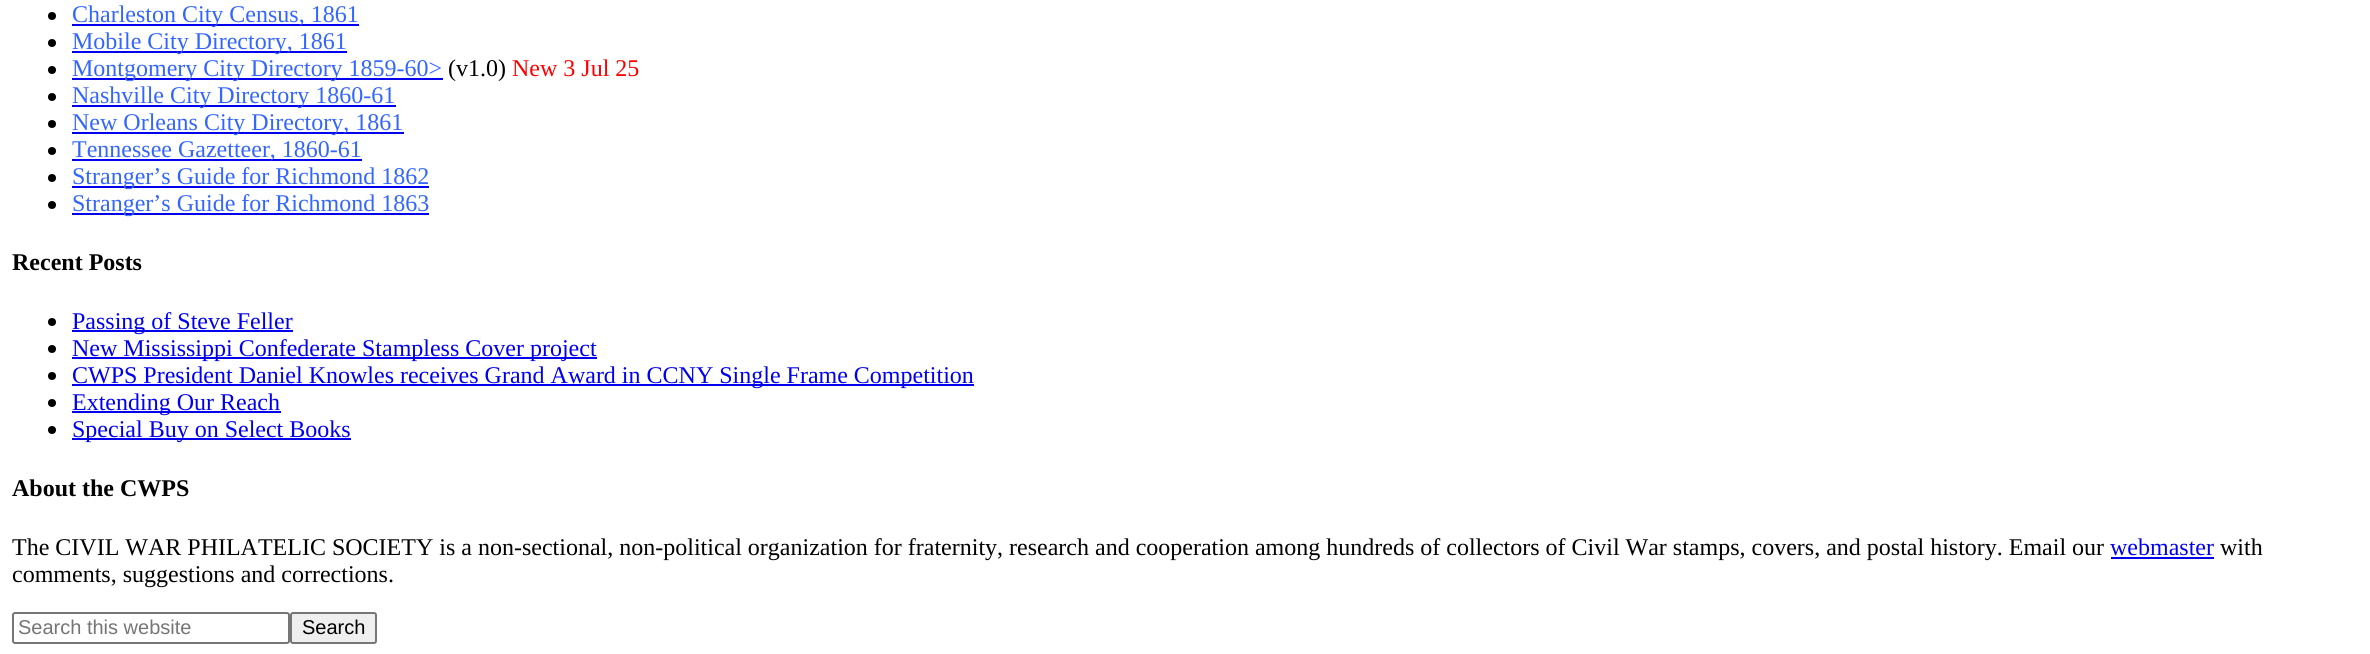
#include <cairo/cairo.h>
#include <math.h>
#include <stddef.h>

typedef struct { double x, y; const char *s; } line_t;
static cairo_t *cr;

static void rgb(unsigned color)
{
	cairo_set_source_rgb(cr, (color >> 16) / 255.0, (color >> 8 & 255) / 255.0, (color & 255) / 255.0);
}

static void rrect(double x, double y, double w, double h, double r)
{
	cairo_new_sub_path(cr);
	cairo_arc(cr, x + w - r, y + h - r, r, 0, M_PI / 2);
	cairo_arc(cr, x + r, y + h - r, r, M_PI / 2, M_PI);
	cairo_arc(cr, x + r, y + r, r, M_PI, 1.5 * M_PI);
	cairo_arc(cr, x + w - r, y + r, r, 1.5 * M_PI, 2 * M_PI);
	cairo_close_path(cr);
}

int main(void) {
	cairo_surface_t *surface = cairo_image_surface_create(CAIRO_FORMAT_RGB24, 2370, 654);
	cr = cairo_create(surface);
	cairo_font_options_t *options = cairo_font_options_create();
	cairo_font_options_set_hint_metrics(options, CAIRO_HINT_METRICS_OFF);
	cairo_font_options_set_hint_style(options, CAIRO_HINT_STYLE_NONE);
	cairo_set_font_options(cr, options);
	cairo_set_miter_limit(cr, 4);
	rgb(0xffffff);
	cairo_paint(cr);
	rgb(0x000000);
	cairo_arc(cr, 52, 16, 4, 0, 2 * M_PI);
	cairo_fill(cr);
	rgb(0x0000ee);
	cairo_rectangle(cr, 72, 24, 287, 2);
	cairo_fill(cr);
	rgb(0x000000);
	cairo_arc(cr, 52, 43, 4, 0, 2 * M_PI);
	cairo_fill(cr);
	rgb(0x0000ee);
	cairo_rectangle(cr, 72, 51, 275, 2);
	cairo_fill(cr);
	rgb(0x000000);
	cairo_arc(cr, 52, 70, 4, 0, 2 * M_PI);
	cairo_fill(cr);
	rgb(0x0000ee);
	cairo_rectangle(cr, 72, 78, 371, 2);
	cairo_fill(cr);
	rgb(0x000000);
	cairo_arc(cr, 52, 97, 4, 0, 2 * M_PI);
	cairo_fill(cr);
	rgb(0x0000ee);
	cairo_rectangle(cr, 72, 105, 324, 2);
	cairo_fill(cr);
	rgb(0x000000);
	cairo_arc(cr, 52, 124, 4, 0, 2 * M_PI);
	cairo_fill(cr);
	rgb(0x0000ee);
	cairo_rectangle(cr, 72, 132, 332, 2);
	cairo_fill(cr);
	rgb(0x000000);
	cairo_arc(cr, 52, 151, 4, 0, 2 * M_PI);
	cairo_fill(cr);
	rgb(0x0000ee);
	cairo_rectangle(cr, 72, 159, 290, 2);
	cairo_fill(cr);
	rgb(0x000000);
	cairo_arc(cr, 52, 178, 4, 0, 2 * M_PI);
	cairo_fill(cr);
	rgb(0x0000ee);
	cairo_rectangle(cr, 72, 186, 357, 2);
	cairo_fill(cr);
	rgb(0x000000);
	cairo_arc(cr, 52, 205, 4, 0, 2 * M_PI);
	cairo_fill(cr);
	rgb(0x0000ee);
	cairo_rectangle(cr, 72, 213, 357, 2);
	cairo_fill(cr);
	rgb(0x000000);
	cairo_arc(cr, 52, 322, 4, 0, 2 * M_PI);
	cairo_fill(cr);
	rgb(0x0000ee);
	cairo_rectangle(cr, 72, 330, 221, 2);
	cairo_fill(cr);
	rgb(0x000000);
	cairo_arc(cr, 52, 349, 4, 0, 2 * M_PI);
	cairo_fill(cr);
	rgb(0x0000ee);
	cairo_rectangle(cr, 72, 357, 525, 2);
	cairo_fill(cr);
	rgb(0x000000);
	cairo_arc(cr, 52, 376, 4, 0, 2 * M_PI);
	cairo_fill(cr);
	rgb(0x0000ee);
	cairo_rectangle(cr, 72, 384, 902, 2);
	cairo_fill(cr);
	rgb(0x000000);
	cairo_arc(cr, 52, 403, 4, 0, 2 * M_PI);
	cairo_fill(cr);
	rgb(0x0000ee);
	cairo_rectangle(cr, 72, 411, 209, 2);
	cairo_fill(cr);
	rgb(0x000000);
	cairo_arc(cr, 52, 430, 4, 0, 2 * M_PI);
	cairo_fill(cr);
	rgb(0x0000ee);
	cairo_rectangle(cr, 72, 438, 279, 2);
	cairo_fill(cr);
	cairo_rectangle(cr, 2111, 557, 103, 2);
	cairo_fill(cr);
	rrect(13, 613, 276, 30, 2);
	rgb(0x767676);
	cairo_stroke(cr);
	rgb(0xefefef);
	rrect(291, 613, 85, 30, 2);
	cairo_fill_preserve(cr);
	rgb(0x767676);
	cairo_stroke(cr);
	cairo_select_font_face(cr, "Liberation Serif", CAIRO_FONT_SLANT_NORMAL, CAIRO_FONT_WEIGHT_NORMAL);
	cairo_set_font_size(cr, 24);
	rgb(0x3366ff);
	{
		static const line_t items[] = {
			{72, 22, "Charleston City Census, 1861"},
			{72, 49, "Mobile City Directory, 1861"},
			{72, 76, "Montgomery City Directory 1859-60>"},
		};
		for (size_t i = 0; i < sizeof items / sizeof *items; i++) {
			cairo_move_to(cr, items[i].x, items[i].y);
			cairo_show_text(cr, items[i].s);
		}
	}
	rgb(0x000000);
	cairo_move_to(cr, 448, 76);
	cairo_show_text(cr, "(v1.0)");
	rgb(0xff0000);
	cairo_move_to(cr, 512, 76);
	cairo_show_text(cr, "New 3 Jul 25");
	rgb(0x3366ff);
	{
		static const line_t items[] = {
			{72, 103, "Nashville City Directory 1860-61"},
			{72, 130, "New Orleans City Directory, 1861"},
			{72, 157, "Tennessee Gazetteer, 1860-61"},
			{72, 184, "Stranger’s Guide for Richmond 1862"},
			{72, 211, "Stranger’s Guide for Richmond 1863"},
		};
		for (size_t i = 0; i < sizeof items / sizeof *items; i++) {
			cairo_move_to(cr, items[i].x, items[i].y);
			cairo_show_text(cr, items[i].s);
		}
	}
	cairo_select_font_face(cr, "Liberation Serif", CAIRO_FONT_SLANT_NORMAL, CAIRO_FONT_WEIGHT_BOLD);
	rgb(0x000000);
	cairo_move_to(cr, 12, 270);
	cairo_show_text(cr, "Recent Posts");
	cairo_select_font_face(cr, "Liberation Serif", CAIRO_FONT_SLANT_NORMAL, CAIRO_FONT_WEIGHT_NORMAL);
	rgb(0x0000ee);
	{
		static const line_t items[] = {
			{72, 329, "Passing of Steve Feller"},
			{72, 356, "New Mississippi Confederate Stampless Cover project"},
			{72, 383, "CWPS President Daniel Knowles receives Grand Award in CCNY Single Frame Competition"},
			{72, 410, "Extending Our Reach"},
			{72, 437, "Special Buy on Select Books"},
		};
		for (size_t i = 0; i < sizeof items / sizeof *items; i++) {
			cairo_move_to(cr, items[i].x, items[i].y);
			cairo_show_text(cr, items[i].s);
		}
	}
	cairo_select_font_face(cr, "Liberation Serif", CAIRO_FONT_SLANT_NORMAL, CAIRO_FONT_WEIGHT_BOLD);
	rgb(0x000000);
	cairo_move_to(cr, 12, 496);
	cairo_show_text(cr, "About the CWPS");
	cairo_select_font_face(cr, "Liberation Serif", CAIRO_FONT_SLANT_NORMAL, CAIRO_FONT_WEIGHT_NORMAL);
	cairo_move_to(cr, 12, 555);
	cairo_show_text(cr, "The CIVIL WAR PHILATELIC SOCIETY is a non-sectional, non-political organization for fraternity, research and cooperation among hundreds of collectors of Civil War stamps, covers, and postal history. Email our");
	rgb(0x0000ee);
	cairo_move_to(cr, 2110, 555);
	cairo_show_text(cr, "webmaster");
	rgb(0x000000);
	cairo_move_to(cr, 2220, 555);
	cairo_show_text(cr, "with");
	cairo_move_to(cr, 12, 582);
	cairo_show_text(cr, "comments, suggestions and corrections.");
	cairo_select_font_face(cr, "Liberation Sans", CAIRO_FONT_SLANT_NORMAL, CAIRO_FONT_WEIGHT_NORMAL);
	cairo_set_font_size(cr, 20);
	rgb(0x757575);
	cairo_move_to(cr, 18, 634);
	cairo_show_text(cr, "Search this website");
	rgb(0x000000);
	cairo_move_to(cr, 302, 634);
	cairo_show_text(cr, "Search");
	cairo_surface_write_to_png(surface, "page.png");
	cairo_font_options_destroy(options);
	cairo_destroy(cr);
	cairo_surface_destroy(surface);
	return 0;
}
